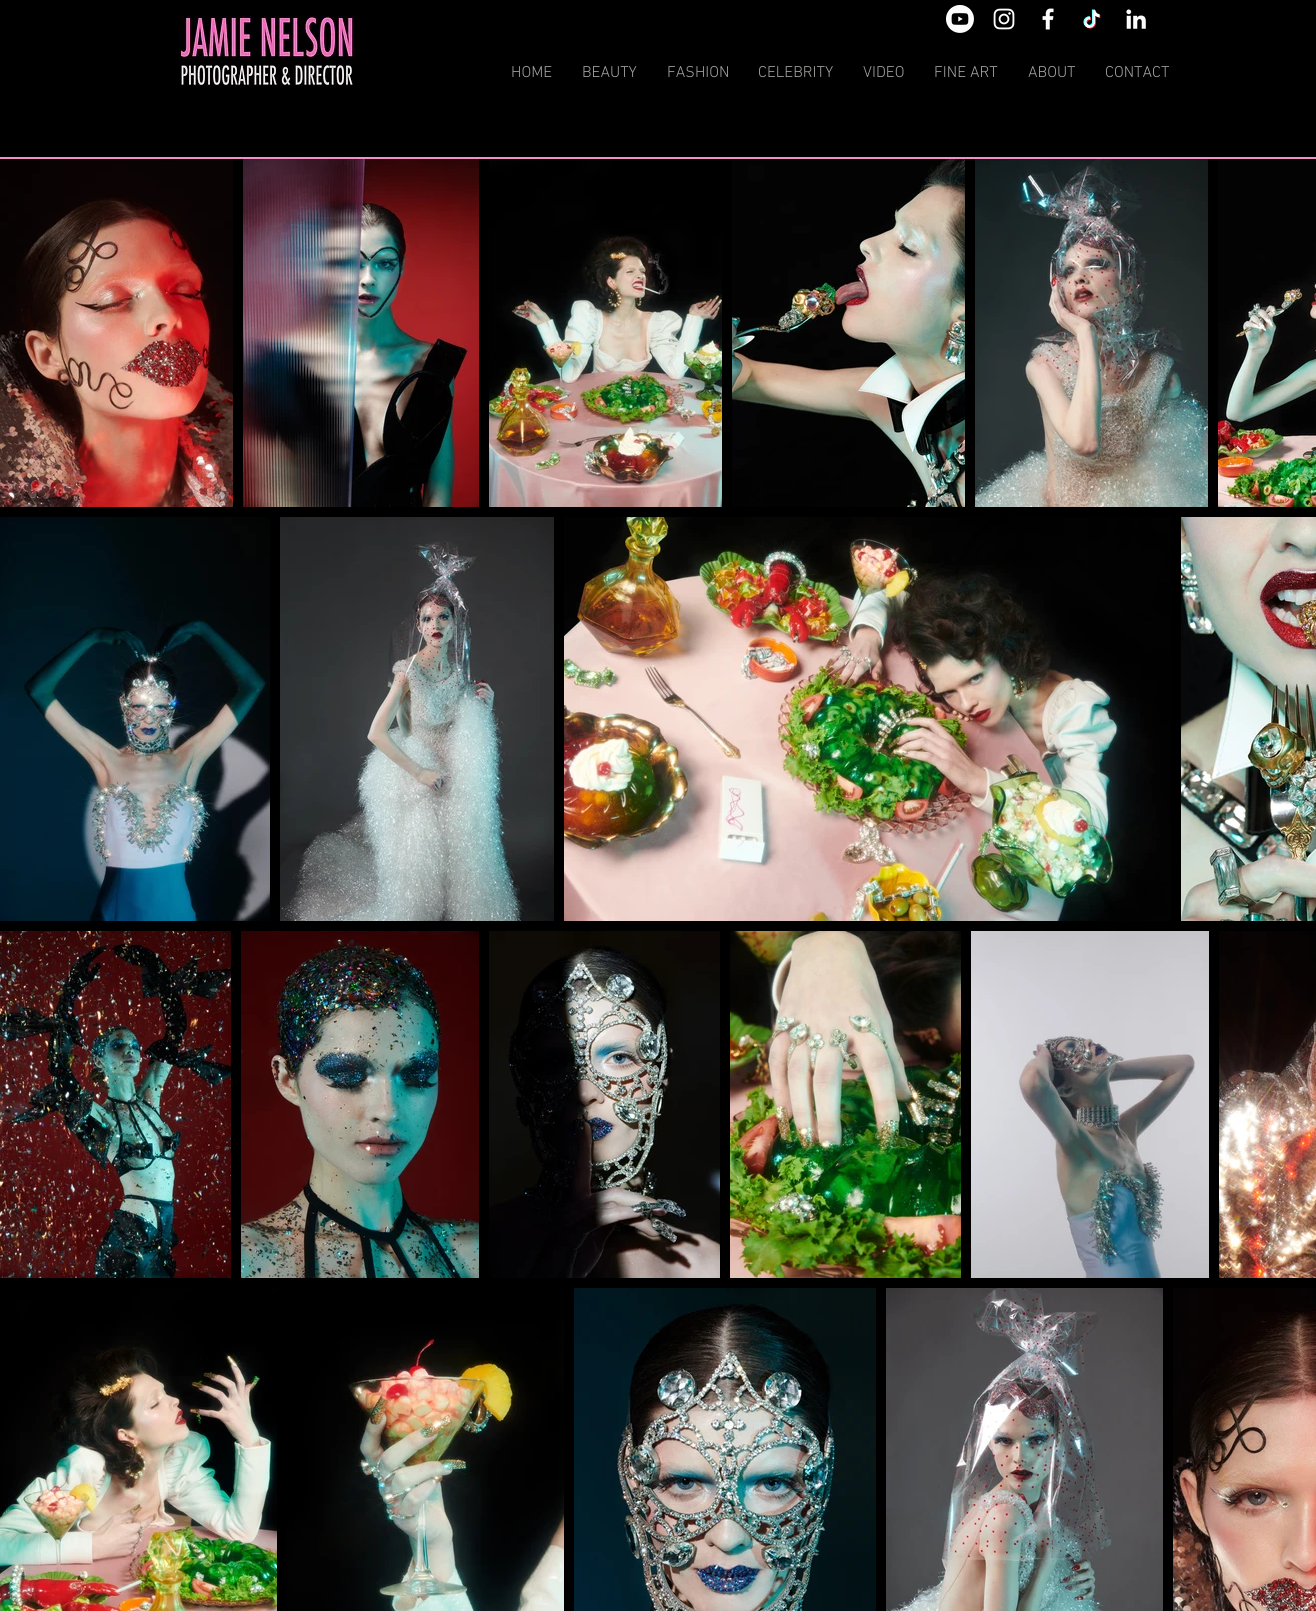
#include <cairo/cairo.h>
#include <math.h>
#include <stddef.h>

typedef struct { double x, y; const char *s; } line_t;
static cairo_t *cr;

static void rgb(unsigned color)
{
	cairo_set_source_rgb(cr, (color >> 16) / 255.0, (color >> 8 & 255) / 255.0, (color & 255) / 255.0);
}

static void image(const char *path, double x, double y, double w, double h)
{
	cairo_surface_t *image = cairo_image_surface_create_from_png(path);
	cairo_save(cr);
	cairo_set_source_surface(cr, image, x, y);
	cairo_rectangle(cr, x, y, w, h);
	cairo_fill(cr);
	cairo_restore(cr);
	cairo_surface_destroy(image);
}

int main(void) {
	cairo_surface_t *surface = cairo_image_surface_create(CAIRO_FORMAT_RGB24, 1316, 1611);
	cr = cairo_create(surface);
	cairo_font_options_t *options = cairo_font_options_create();
	cairo_font_options_set_hint_metrics(options, CAIRO_HINT_METRICS_OFF);
	cairo_font_options_set_hint_style(options, CAIRO_HINT_STYLE_NONE);
	cairo_set_font_options(cr, options);
	cairo_set_miter_limit(cr, 4);
	rgb(0x000000);
	cairo_paint(cr);
	image("img/1.png", 179, 15, 176, 50);
	image("img/2.png", 946, 5, 28, 28);
	image("img/3.png", 993, 8, 22, 22);
	image("img/4.png", 1042, 8, 12, 22);
	image("img/5.png", 1083, 9, 18, 20);
	image("img/6.png", 1126, 9, 20, 20);
	image("img/7.png", 180, 65, 173, 22);
	rgb(0xf48fca);
	cairo_rectangle(cr, 0, 157, 1316, 2);
	cairo_fill(cr);
	image("img/8.png", 0, 159, 233, 348);
	image("img/9.png", 243, 159, 236, 348);
	image("img/10.png", 489, 159, 233, 348);
	image("img/11.png", 732, 159, 233, 348);
	image("img/12.png", 975, 159, 233, 348);
	image("img/13.png", 1218, 159, 98, 348);
	image("img/14.png", 0, 517, 270, 404);
	image("img/15.png", 280, 517, 274, 404);
	image("img/16.png", 564, 517, 607, 404);
	image("img/17.png", 1181, 517, 135, 404);
	image("img/18.png", 0, 931, 231, 347);
	image("img/19.png", 241, 931, 238, 347);
	image("img/20.png", 489, 931, 231, 347);
	image("img/21.png", 730, 931, 231, 347);
	image("img/22.png", 971, 931, 238, 347);
	image("img/23.png", 1219, 931, 97, 347);
	image("img/24.png", 0, 1288, 277, 323);
	image("img/25.png", 287, 1288, 277, 323);
	image("img/26.png", 574, 1288, 302, 323);
	image("img/27.png", 886, 1288, 277, 323);
	image("img/28.png", 1173, 1288, 143, 323);
	cairo_select_font_face(cr, "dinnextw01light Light", CAIRO_FONT_SLANT_NORMAL, CAIRO_FONT_WEIGHT_NORMAL);
	cairo_set_font_size(cr, 16);
	rgb(0xa0a09f);
	{
		static const line_t items[] = {
			{511, 77, "HOME"},
			{582, 77, "BEAUTY"},
			{667, 77, "FASHION"},
			{758, 77, "CELEBRITY"},
			{863, 77, "VIDEO"},
			{934, 77, "FINE ART"},
			{1028, 77, "ABOUT"},
			{1105, 77, "CONTACT"},
		};
		for (size_t i = 0; i < sizeof items / sizeof *items; i++) {
			cairo_move_to(cr, items[i].x, items[i].y);
			cairo_show_text(cr, items[i].s);
		}
	}
	cairo_surface_write_to_png(surface, "page.png");
	cairo_font_options_destroy(options);
	cairo_destroy(cr);
	cairo_surface_destroy(surface);
	return 0;
}
